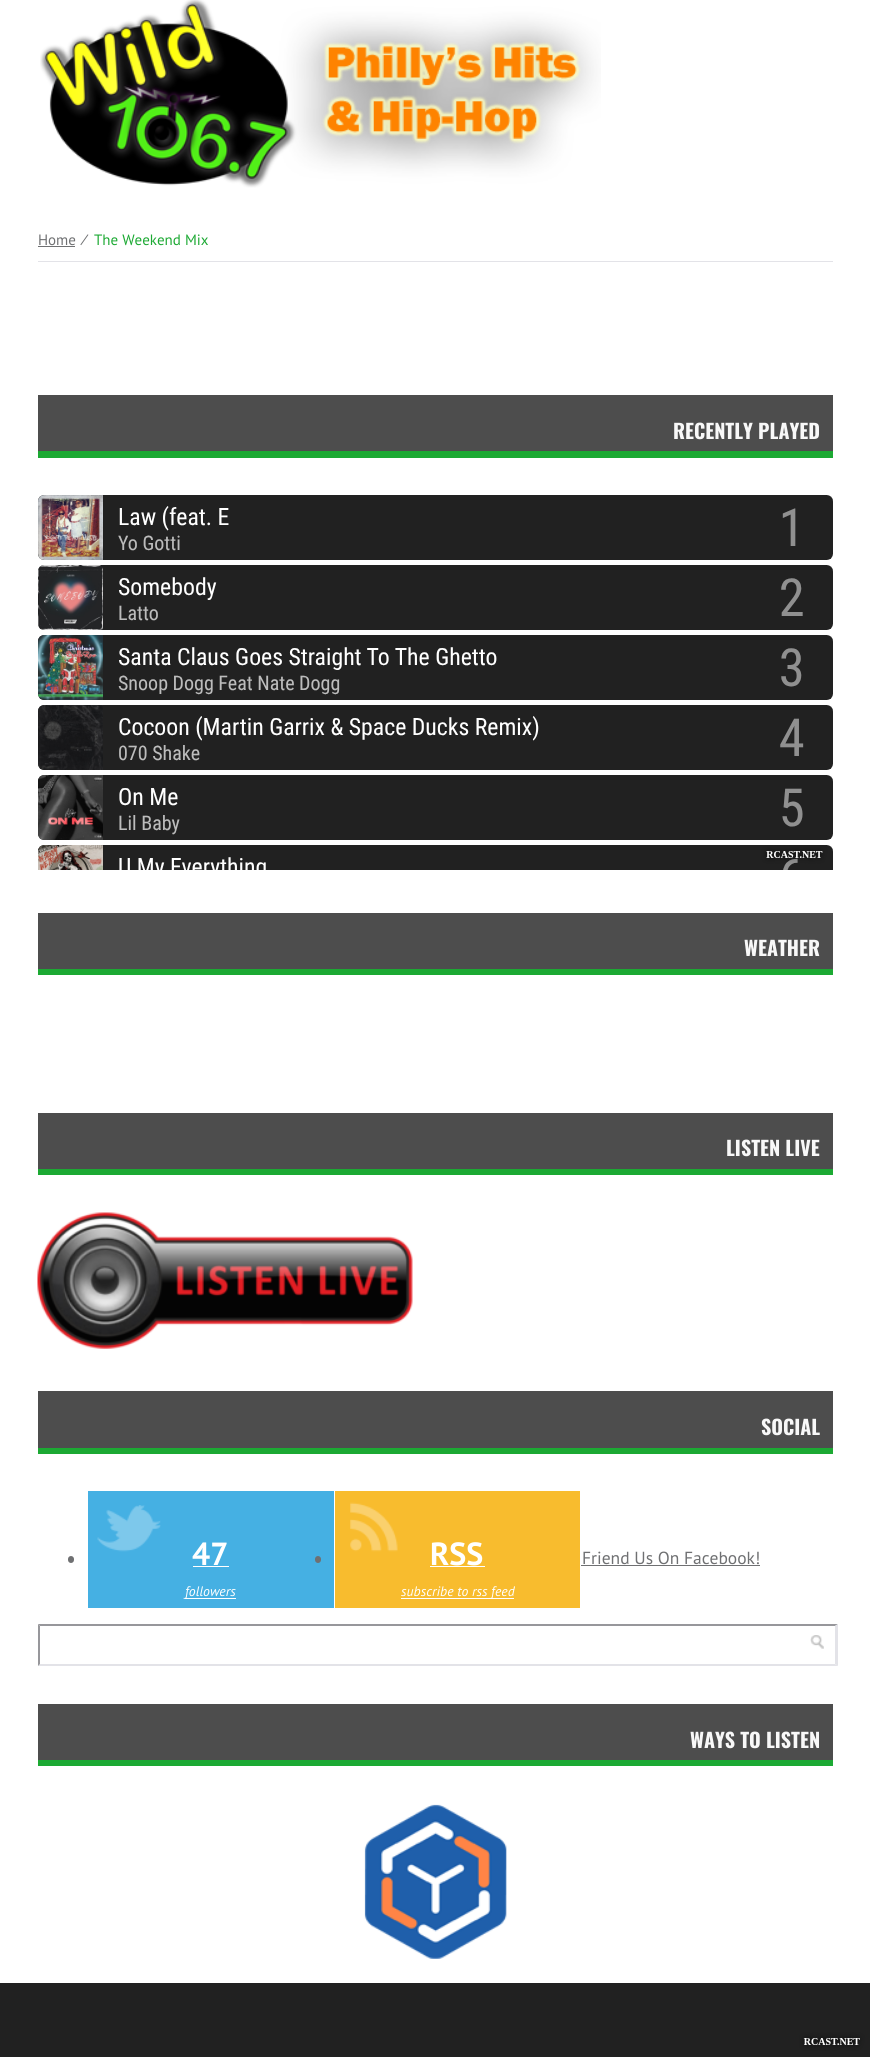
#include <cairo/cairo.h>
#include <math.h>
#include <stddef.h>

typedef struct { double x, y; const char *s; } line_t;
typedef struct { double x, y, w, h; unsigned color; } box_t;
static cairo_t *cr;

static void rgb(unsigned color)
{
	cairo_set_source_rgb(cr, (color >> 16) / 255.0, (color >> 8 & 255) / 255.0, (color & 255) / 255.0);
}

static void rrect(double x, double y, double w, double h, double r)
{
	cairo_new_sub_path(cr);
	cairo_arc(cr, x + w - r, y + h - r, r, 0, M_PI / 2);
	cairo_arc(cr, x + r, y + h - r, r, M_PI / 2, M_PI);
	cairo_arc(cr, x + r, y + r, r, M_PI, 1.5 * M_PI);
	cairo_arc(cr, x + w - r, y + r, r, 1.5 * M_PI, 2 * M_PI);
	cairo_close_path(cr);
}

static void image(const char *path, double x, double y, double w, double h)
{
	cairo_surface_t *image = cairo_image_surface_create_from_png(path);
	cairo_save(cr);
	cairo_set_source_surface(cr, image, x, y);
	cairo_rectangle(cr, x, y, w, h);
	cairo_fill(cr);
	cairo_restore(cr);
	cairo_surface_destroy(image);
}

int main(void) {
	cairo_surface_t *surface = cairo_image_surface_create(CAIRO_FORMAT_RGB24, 870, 2057);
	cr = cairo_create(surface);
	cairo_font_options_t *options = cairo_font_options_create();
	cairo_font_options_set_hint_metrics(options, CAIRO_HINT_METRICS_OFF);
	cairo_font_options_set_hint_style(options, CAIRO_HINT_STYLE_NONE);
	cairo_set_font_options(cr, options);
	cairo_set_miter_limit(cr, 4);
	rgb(0xffffff);
	cairo_paint(cr);
	image("img/1.png", 40, 0, 561, 188);
	{
		static const box_t items[] = {
			{38, 261, 795, 1, 0xe3e3e8},
			{38, 246, 37, 1, 0x6f7072},
			{38, 395, 795, 56, 0x4d4d4d},
			{38, 451, 795, 7, 0x1ca933},
		};
		for (size_t i = 0; i < sizeof items / sizeof *items; i++) {
			rgb(items[i].color);
			cairo_rectangle(cr, items[i].x, items[i].y, items[i].w, items[i].h);
			cairo_fill(cr);
		}
	}
	image("img/2.png", 38, 495, 795, 375);
	{
		static const box_t items[] = {
			{38, 913, 795, 56, 0x4d4d4d},
			{38, 969, 795, 6, 0x1ca933},
			{38, 1113, 795, 56, 0x4d4d4d},
			{38, 1169, 795, 6, 0x1ca933},
		};
		for (size_t i = 0; i < sizeof items / sizeof *items; i++) {
			rgb(items[i].color);
			cairo_rectangle(cr, items[i].x, items[i].y, items[i].w, items[i].h);
			cairo_fill(cr);
		}
	}
	image("img/3.png", 37, 1212, 376, 137);
	{
		static const box_t items[] = {
			{38, 1391, 795, 57, 0x4d4d4d},
			{38, 1448, 795, 6, 0x1ca933},
			{88, 1491, 246, 117, 0x45b0e3},
		};
		for (size_t i = 0; i < sizeof items / sizeof *items; i++) {
			rgb(items[i].color);
			cairo_rectangle(cr, items[i].x, items[i].y, items[i].w, items[i].h);
			cairo_fill(cr);
		}
	}
	image("img/4.png", 97, 1505, 64, 47);
	rgb(0x6f7072);
	rrect(68, 1556, 6, 7, 3);
	cairo_fill(cr);
	{
		static const box_t items[] = {
			{193, 1566, 36, 1, 0xffffff},
			{185, 1598, 51, 1, 0xffffff},
			{335, 1491, 245, 117, 0xf8bc2e},
		};
		for (size_t i = 0; i < sizeof items / sizeof *items; i++) {
			rgb(items[i].color);
			cairo_rectangle(cr, items[i].x, items[i].y, items[i].w, items[i].h);
			cairo_fill(cr);
		}
	}
	image("img/5.png", 350, 1502, 48, 50);
	rgb(0x6f7072);
	rrect(315, 1556, 6, 7, 3);
	cairo_fill(cr);
	{
		static const box_t items[] = {
			{430, 1566, 55, 1, 0xffffff},
			{401, 1598, 113, 1, 0xffffff},
			{581, 1565, 179, 1, 0x6f7072},
		};
		for (size_t i = 0; i < sizeof items / sizeof *items; i++) {
			rgb(items[i].color);
			cairo_rectangle(cr, items[i].x, items[i].y, items[i].w, items[i].h);
			cairo_fill(cr);
		}
	}
	image("img/6.png", 810, 1635, 14, 14);
	rgb(0x97979b);
	cairo_new_path(cr);
	cairo_move_to(cr, 38, 1624);
	cairo_line_to(cr, 838, 1624);
	cairo_line_to(cr, 835, 1626);
	cairo_line_to(cr, 40, 1626);
	cairo_close_path(cr);
	cairo_fill(cr);
	rgb(0xe3e3e8);
	cairo_new_path(cr);
	cairo_move_to(cr, 838, 1624);
	cairo_line_to(cr, 838, 1666);
	cairo_line_to(cr, 835, 1664);
	cairo_line_to(cr, 835, 1626);
	cairo_close_path(cr);
	cairo_fill(cr);
	cairo_new_path(cr);
	cairo_move_to(cr, 838, 1666);
	cairo_line_to(cr, 38, 1666);
	cairo_line_to(cr, 40, 1664);
	cairo_line_to(cr, 835, 1664);
	cairo_close_path(cr);
	cairo_fill(cr);
	rgb(0x97979b);
	cairo_new_path(cr);
	cairo_move_to(cr, 38, 1666);
	cairo_line_to(cr, 38, 1624);
	cairo_line_to(cr, 40, 1626);
	cairo_line_to(cr, 40, 1664);
	cairo_close_path(cr);
	cairo_fill(cr);
	rgb(0x4d4d4d);
	cairo_rectangle(cr, 38, 1704, 795, 56);
	cairo_fill(cr);
	rgb(0x1ca933);
	cairo_rectangle(cr, 38, 1760, 795, 6);
	cairo_fill(cr);
	image("img/7.png", 364, 1804, 143, 155);
	image("img/8.png", 0, 1983, 870, 74);
	cairo_select_font_face(cr, "PT Sans", CAIRO_FONT_SLANT_NORMAL, CAIRO_FONT_WEIGHT_NORMAL);
	cairo_set_font_size(cr, 15);
	rgb(0x6f7072);
	cairo_move_to(cr, 38, 245);
	cairo_show_text(cr, "Home");
	cairo_move_to(cr, 83, 245);
	cairo_show_text(cr, "⁄");
	rgb(0x1ca933);
	cairo_move_to(cr, 94, 245);
	cairo_show_text(cr, "The Weekend Mix");
	cairo_select_font_face(cr, "Oswald", CAIRO_FONT_SLANT_NORMAL, CAIRO_FONT_WEIGHT_BOLD);
	cairo_set_font_size(cr, 20);
	rgb(0xf8f8f8);
	{
		static const line_t items[] = {
			{673, 439, "RECENTLY PLAYED"},
			{744, 956, "WEATHER"},
			{726, 1156, "LISTEN LIVE"},
			{761, 1435, "SOCIAL"},
		};
		for (size_t i = 0; i < sizeof items / sizeof *items; i++) {
			cairo_move_to(cr, items[i].x, items[i].y);
			cairo_show_text(cr, items[i].s);
		}
	}
	cairo_select_font_face(cr, "PT Sans", CAIRO_FONT_SLANT_NORMAL, CAIRO_FONT_WEIGHT_BOLD);
	cairo_set_font_size(cr, 32);
	rgb(0xffffff);
	cairo_move_to(cr, 192, 1565);
	cairo_show_text(cr, "47");
	cairo_select_font_face(cr, "PT Sans", CAIRO_FONT_SLANT_ITALIC, CAIRO_FONT_WEIGHT_NORMAL);
	cairo_set_font_size(cr, 13.75);
	cairo_move_to(cr, 185, 1596);
	cairo_show_text(cr, "followers");
	cairo_select_font_face(cr, "PT Sans", CAIRO_FONT_SLANT_NORMAL, CAIRO_FONT_WEIGHT_BOLD);
	cairo_set_font_size(cr, 32);
	cairo_move_to(cr, 430, 1565);
	cairo_show_text(cr, "RSS");
	cairo_select_font_face(cr, "PT Sans", CAIRO_FONT_SLANT_ITALIC, CAIRO_FONT_WEIGHT_NORMAL);
	cairo_set_font_size(cr, 13.75);
	cairo_move_to(cr, 401, 1596);
	cairo_show_text(cr, "subscribe to rss feed");
	cairo_select_font_face(cr, "PT Sans", CAIRO_FONT_SLANT_NORMAL, CAIRO_FONT_WEIGHT_NORMAL);
	cairo_set_font_size(cr, 17.5);
	rgb(0x6f7072);
	cairo_move_to(cr, 582, 1564);
	cairo_show_text(cr, "Friend Us On Facebook!");
	cairo_select_font_face(cr, "Oswald", CAIRO_FONT_SLANT_NORMAL, CAIRO_FONT_WEIGHT_BOLD);
	cairo_set_font_size(cr, 20);
	rgb(0xf8f8f8);
	cairo_move_to(cr, 690, 1748);
	cairo_show_text(cr, "WAYS TO LISTEN");
	cairo_surface_write_to_png(surface, "page.png");
	cairo_font_options_destroy(options);
	cairo_destroy(cr);
	cairo_surface_destroy(surface);
	return 0;
}
